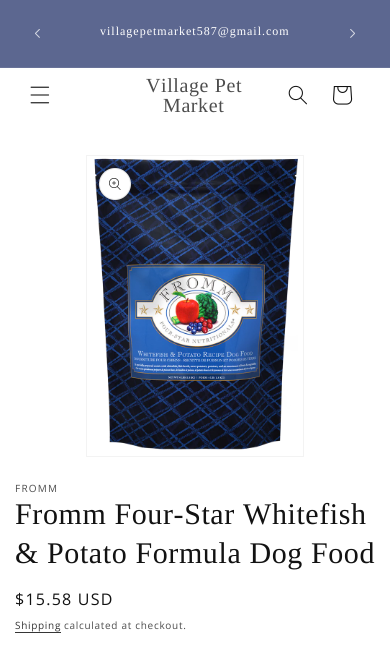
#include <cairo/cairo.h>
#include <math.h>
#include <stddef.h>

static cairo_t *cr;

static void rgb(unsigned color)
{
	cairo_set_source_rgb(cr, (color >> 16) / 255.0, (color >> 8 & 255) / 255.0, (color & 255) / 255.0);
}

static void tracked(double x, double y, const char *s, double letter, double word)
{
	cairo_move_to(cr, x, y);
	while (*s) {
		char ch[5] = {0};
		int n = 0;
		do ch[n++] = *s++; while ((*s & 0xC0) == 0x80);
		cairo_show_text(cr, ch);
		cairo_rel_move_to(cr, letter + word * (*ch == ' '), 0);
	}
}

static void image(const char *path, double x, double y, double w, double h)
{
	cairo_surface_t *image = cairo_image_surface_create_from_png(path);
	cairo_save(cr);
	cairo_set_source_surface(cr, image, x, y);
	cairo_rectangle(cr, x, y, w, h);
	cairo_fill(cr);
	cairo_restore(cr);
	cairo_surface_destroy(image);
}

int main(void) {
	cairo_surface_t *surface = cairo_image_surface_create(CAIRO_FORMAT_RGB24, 390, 649);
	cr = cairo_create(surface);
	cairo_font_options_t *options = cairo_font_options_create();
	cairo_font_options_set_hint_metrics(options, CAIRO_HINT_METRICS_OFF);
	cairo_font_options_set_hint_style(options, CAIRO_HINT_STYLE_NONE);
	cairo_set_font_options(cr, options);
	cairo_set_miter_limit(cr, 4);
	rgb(0xffffff);
	cairo_paint(cr);
	rgb(0x5c6790);
	cairo_rectangle(cr, 0, 0, 390, 67);
	cairo_fill(cr);
	rgb(0x697399);
	cairo_rectangle(cr, 0, 67, 390, 1);
	cairo_fill(cr);
	image("img/1.png", 35, 29, 5, 9);
	image("img/2.png", 350, 29, 5, 9);
	image("img/3.png", 30, 86, 20, 18);
	image("img/4.png", 288, 85, 19, 20);
	image("img/5.png", 333, 86, 20, 19);
	cairo_rectangle(cr, 86.5, 155.5, 217, 301);
	rgb(0xf3f3f3);
	cairo_set_line_width(cr, 1);
	cairo_stroke(cr);
	image("img/6.png", 94, 158, 204, 292);
	rgb(0xffffff);
	cairo_arc(cr, 115, 184, 16, 0, 2 * M_PI);
	cairo_fill(cr);
	cairo_arc(cr, 115, 184, 15.5, 0, 2 * M_PI);
	cairo_set_source_rgba(cr, 0.071, 0.071, 0.071, 0.1);
	cairo_stroke(cr);
	image("img/7.png", 109, 178, 12, 12);
	rgb(0x363636);
	cairo_rectangle(cr, 15, 632, 46, 1);
	cairo_fill(cr);
	cairo_select_font_face(cr, "Liberation Serif", CAIRO_FONT_SLANT_NORMAL, CAIRO_FONT_WEIGHT_NORMAL);
	cairo_set_font_size(cr, 12);
	rgb(0xffffff);
	tracked(100, 35, "villagepetmarket587@gmail.com", 1, 0);
	cairo_set_font_size(cr, 20);
	rgb(0x4d4d4d);
	tracked(146, 92, "Village Pet", 0.6, 0);
	tracked(163, 112, "Market", 0.6, 0);
	cairo_select_font_face(cr, "Open Sans", CAIRO_FONT_SLANT_NORMAL, CAIRO_FONT_WEIGHT_NORMAL);
	cairo_set_font_size(cr, 10);
	tracked(15, 492, "FROMM", 1.25, 0);
	cairo_select_font_face(cr, "Liberation Serif", CAIRO_FONT_SLANT_NORMAL, CAIRO_FONT_WEIGHT_NORMAL);
	cairo_set_font_size(cr, 30);
	rgb(0x121212);
	tracked(15, 524, "Fromm Four-Star Whitefish", 0.6, 0);
	tracked(15, 563, "& Potato Formula Dog Food", 0.6, 0);
	cairo_select_font_face(cr, "Open Sans", CAIRO_FONT_SLANT_NORMAL, CAIRO_FONT_WEIGHT_NORMAL);
	cairo_set_font_size(cr, 16);
	tracked(15, 605, "$15.58 USD", 1.25, 0);
	cairo_set_font_size(cr, 10);
	rgb(0x363636);
	tracked(15, 629, "Shipping", 0.7, 0);
	rgb(0x4d4d4d);
	tracked(64, 629, "calculated at checkout.", 0.7, 0);
	cairo_surface_write_to_png(surface, "page.png");
	cairo_font_options_destroy(options);
	cairo_destroy(cr);
	cairo_surface_destroy(surface);
	return 0;
}
